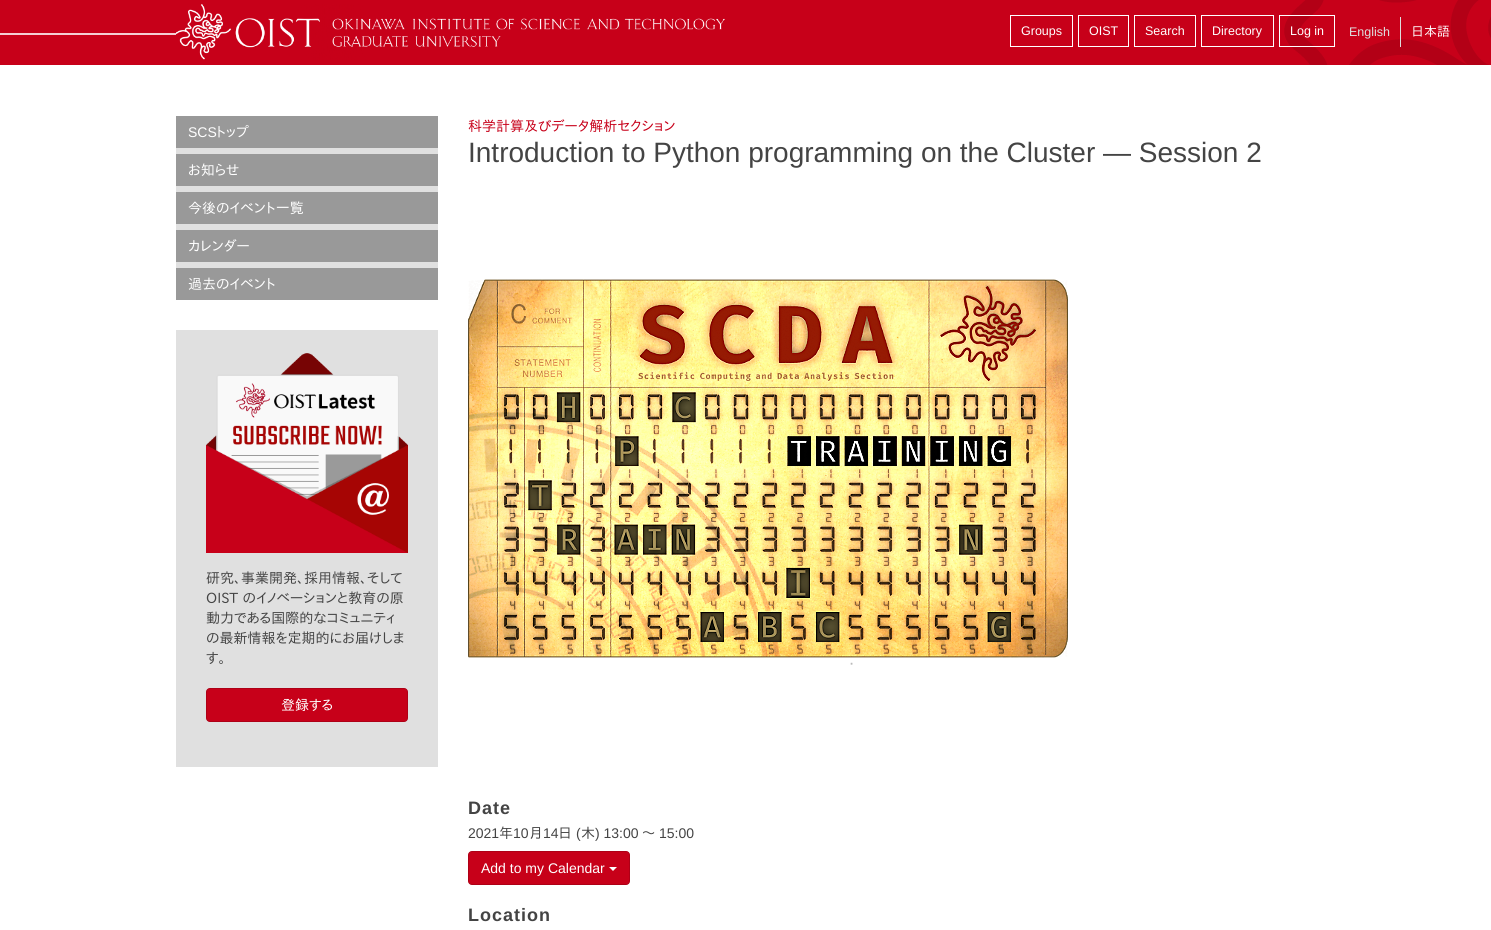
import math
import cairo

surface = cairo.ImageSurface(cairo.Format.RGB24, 1491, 930)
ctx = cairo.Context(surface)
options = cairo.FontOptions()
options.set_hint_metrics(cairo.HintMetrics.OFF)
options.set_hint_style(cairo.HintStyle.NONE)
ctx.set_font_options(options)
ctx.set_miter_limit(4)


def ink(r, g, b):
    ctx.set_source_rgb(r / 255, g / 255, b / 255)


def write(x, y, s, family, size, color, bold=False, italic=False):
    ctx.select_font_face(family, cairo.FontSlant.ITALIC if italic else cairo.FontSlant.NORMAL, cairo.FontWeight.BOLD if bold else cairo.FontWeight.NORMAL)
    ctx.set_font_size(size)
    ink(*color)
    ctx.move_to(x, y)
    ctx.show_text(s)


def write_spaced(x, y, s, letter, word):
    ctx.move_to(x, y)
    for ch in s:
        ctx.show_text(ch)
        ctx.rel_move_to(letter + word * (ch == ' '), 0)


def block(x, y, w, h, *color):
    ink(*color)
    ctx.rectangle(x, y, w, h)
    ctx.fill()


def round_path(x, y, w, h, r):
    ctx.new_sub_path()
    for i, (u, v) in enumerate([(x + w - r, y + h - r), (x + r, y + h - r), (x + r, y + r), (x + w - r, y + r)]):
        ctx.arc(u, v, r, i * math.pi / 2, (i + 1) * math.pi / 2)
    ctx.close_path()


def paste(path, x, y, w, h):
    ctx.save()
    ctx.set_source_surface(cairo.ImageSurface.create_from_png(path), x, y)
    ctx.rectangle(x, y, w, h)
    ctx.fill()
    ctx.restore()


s1 = dict(family="Liberation Sans", size=12.5, color=(255, 255, 255))
s2 = dict(family="Liberation Sans", size=12.5, color=(221, 221, 221))
s3 = dict(family="IPAPGothic", size=13, color=(255, 255, 255))
s4 = dict(family="Liberation Sans", size=14, color=(255, 255, 255))
s5 = dict(family="IPAPGothic", size=14, color=(255, 255, 255))
s6 = dict(family="IPAPGothic", size=14, color=(68, 68, 68))
s7 = dict(family="IPAPGothic", size=14, color=(199, 0, 25))
s8 = dict(family="Liberation Sans", size=28, color=(68, 68, 68))
s9 = dict(family="Liberation Sans", size=14, color=(68, 68, 68))

ink(255, 255, 255)
ctx.paint()
block(0, 0, 1491, 65, 199, 0, 25)
paste("pic1.png", 1284, 0, 207, 65)
block(0, 33, 176, 2, 244, 206, 211)
paste("pic2.png", 176, 4, 549, 56)
ctx.rectangle(1010.5, 15.5, 62, 31)
ink(255, 255, 255)
ctx.set_line_width(1)
ctx.stroke()
write(1021, 35, "Groups", **s1)
ctx.rectangle(1078.5, 15.5, 50, 31)
ctx.stroke()
write(1089, 35, "OIST", **s1)
ctx.rectangle(1134.5, 15.5, 61, 31)
ctx.stroke()
write(1145, 35, "Search", **s1)
ctx.rectangle(1201.5, 15.5, 72, 31)
ctx.stroke()
write(1212, 35, "Directory", **s1)
ctx.rectangle(1279.5, 15.5, 55, 31)
ctx.stroke()
write(1290, 35, "Log in", **s1)
write(1349, 36, "English", **s2)
block(1400, 17, 1, 30, 221, 221, 221)
write(1411, 36, "日本語", **s3)
block(176, 148, 262, 120, 224, 224, 224)
block(176, 116, 262, 32, 153, 153, 153)
write(188, 137, "SCS", **s4)
write(216, 137, "トップ", **s5)
block(176, 154, 262, 32, 153, 153, 153)
write(188, 175, "お知らせ", **s5)
block(176, 192, 262, 32, 153, 153, 153)
write(188, 213, "今後のイベント一覧", **s5)
block(176, 230, 262, 32, 153, 153, 153)
write(188, 251, "カレンダー", **s5)
block(176, 268, 262, 32, 153, 153, 153)
write(188, 289, "過去のイベント", **s5)
block(176, 330, 262, 437, 224, 224, 224)
paste("pic3.png", 206, 353, 202, 200)
write(206, 583, "研究、事業開発、採用情報、そして", **s6)
write_spaced(206, 603, "OIST のイノベーションと教育の原", 0, 1)
write(206, 623, "動力である国際的なコミュニティ", **s6)
write(206, 643, "の最新情報を定期的にお届けしま", **s6)
write(206, 663, "す。", **s6)
ink(199, 0, 25)
round_path(206.5, 688.5, 201, 33, 3.5)
ctx.fill_preserve()
ink(174, 0, 22)
ctx.stroke()
write(281, 710, "登録する", **s5)
write(468, 131, "科学計算及びデータ解析セクション", **s7)
write(468, 162, "Introduction to Python programming on the Cluster — Session 2", **s8)
paste("pic4.png", 468, 279, 600, 386)
ctx.select_font_face("Liberation Sans", cairo.FontSlant.NORMAL, cairo.FontWeight.BOLD)
ctx.set_font_size(18)
write_spaced(468, 814, "Date", 1, 0)
write(468, 838, "2021", **s9)
write(499, 838, "年", **s6)
write(513, 838, "10", **s9)
write(529, 838, "月", **s6)
write(543, 838, "14", **s9)
write(558, 838, "日", **s6)
write(576, 838, "(", **s9)
write(581, 838, "木", **s6)
write(595, 838, ") 13:00", **s9)
write(642, 838, "〜", **s6)
write(659, 838, "15:00", **s9)
ink(199, 0, 25)
round_path(468.5, 851.5, 161, 33, 3.5)
ctx.fill_preserve()
ink(174, 0, 22)
ctx.stroke()
write(481, 873, "Add to my Calendar", **s4)
ctx.new_path()
ctx.move_to(609, 867)
ctx.line_to(617, 867)
ctx.line_to(613, 871)
ctx.close_path()
ctx.fill()
ctx.select_font_face("Liberation Sans", cairo.FontSlant.NORMAL, cairo.FontWeight.BOLD)
ctx.set_font_size(18)
ink(68, 68, 68)
write_spaced(468, 921, "Location", 1, 0)
surface.write_to_png("screenshot.png")
